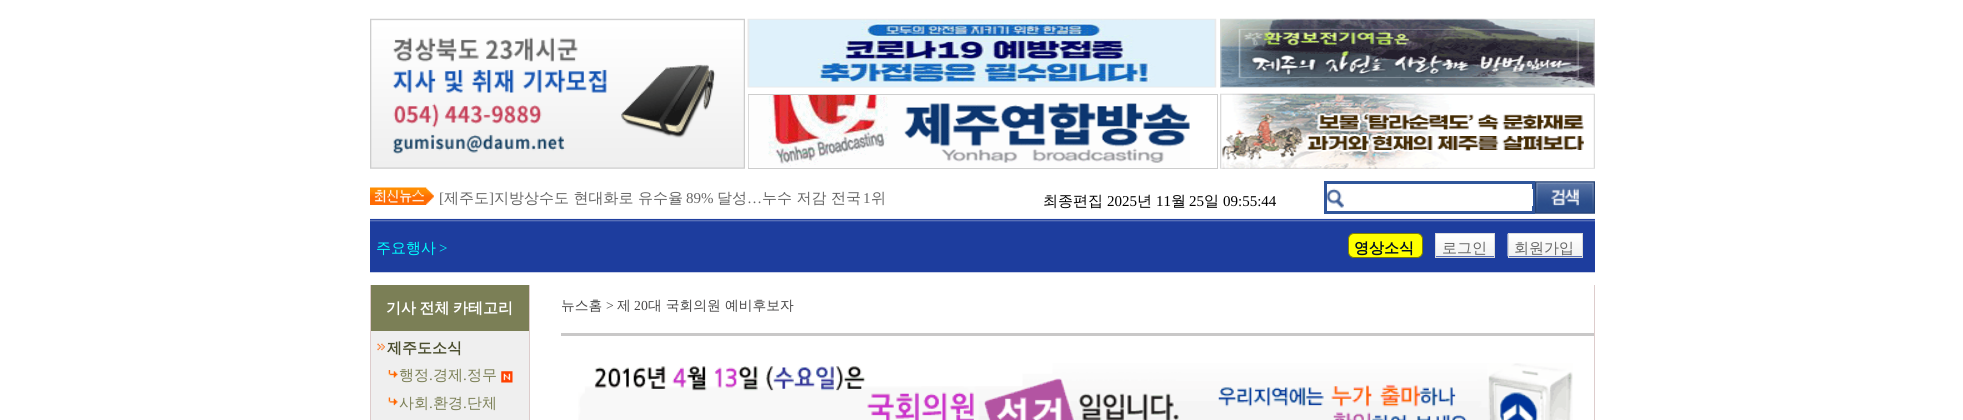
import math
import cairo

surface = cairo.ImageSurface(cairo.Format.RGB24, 1963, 420)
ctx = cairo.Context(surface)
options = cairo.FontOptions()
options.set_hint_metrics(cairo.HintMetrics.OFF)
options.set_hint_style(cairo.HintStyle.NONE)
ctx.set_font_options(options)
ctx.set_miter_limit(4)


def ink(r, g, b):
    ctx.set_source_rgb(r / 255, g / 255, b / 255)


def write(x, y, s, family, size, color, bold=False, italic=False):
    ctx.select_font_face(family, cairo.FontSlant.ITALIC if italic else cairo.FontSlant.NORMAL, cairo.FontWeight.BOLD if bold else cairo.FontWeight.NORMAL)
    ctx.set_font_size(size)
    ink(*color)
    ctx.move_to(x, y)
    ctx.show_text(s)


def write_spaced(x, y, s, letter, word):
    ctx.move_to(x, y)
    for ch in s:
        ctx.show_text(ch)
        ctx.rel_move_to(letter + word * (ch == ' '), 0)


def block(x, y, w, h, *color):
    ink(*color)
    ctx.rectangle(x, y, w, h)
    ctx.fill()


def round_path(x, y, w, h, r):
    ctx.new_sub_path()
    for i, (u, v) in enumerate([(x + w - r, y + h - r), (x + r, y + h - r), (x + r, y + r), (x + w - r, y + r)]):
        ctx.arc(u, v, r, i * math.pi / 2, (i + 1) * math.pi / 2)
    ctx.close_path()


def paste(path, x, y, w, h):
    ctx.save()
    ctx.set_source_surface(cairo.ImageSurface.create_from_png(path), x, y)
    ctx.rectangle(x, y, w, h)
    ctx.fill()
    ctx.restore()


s1 = dict(family="Liberation Serif", size=15, color=(102, 102, 102))
s2 = dict(family="WenQuanYi Zen Hei Medium", size=15, color=(102, 102, 102))
s3 = dict(family="WenQuanYi Zen Hei Medium", size=15, color=(0, 0, 0))
s4 = dict(family="Liberation Serif", size=15, color=(0, 0, 0))
s5 = dict(family="WenQuanYi Zen Hei Medium", size=15, color=(0, 255, 255))
s6 = dict(family="Liberation Serif", size=15, color=(0, 255, 255))
s7 = dict(family="WenQuanYi Zen Hei", size=15, color=(0, 17, 34), bold=True)
s8 = dict(family="WenQuanYi Zen Hei", size=15, color=(75, 78, 46), bold=True)
s9 = dict(family="WenQuanYi Zen Hei Medium", size=15, color=(123, 127, 86))
s10 = dict(family="Liberation Serif", size=15, color=(123, 127, 86))
s11 = dict(family="WenQuanYi Zen Hei Medium", size=13.75, color=(71, 70, 70))
s12 = dict(family="Liberation Serif", size=13.75, color=(71, 70, 70))

ink(255, 255, 255)
ctx.paint()
paste("pic1.png", 370, 18, 375, 151)
paste("pic2.png", 747, 18, 470, 70)
ctx.rectangle(748.5, 94.5, 469, 74)
ink(205, 205, 205)
ctx.set_line_width(1)
ctx.stroke()
paste("pic3.png", 748, 95, 442, 73)
paste("pic4.png", 1220, 18, 375, 70)
paste("pic5.png", 1220, 93, 375, 76)
paste("pic6.png", 370, 187, 64, 18)
write(439, 203, "[", **s1)
write(444, 203, "제주도", **s2)
write(489, 203, "]", **s1)
write(494, 203, "지방상수도 현대화로 유수율", **s2)
write(686, 203, "89%", **s1)
write(717, 203, "달성", **s2)
write(747, 203, "…", **s1)
write(762, 203, "누수 저감 전국", **s2)
write(863, 203, "1", **s1)
write(871, 203, "위", **s2)
write(1043, 206, "최종편집", **s3)
write(1107, 206, "2025", **s4)
write(1137, 206, "년", **s3)
write(1156, 206, "11", **s4)
write(1171, 206, "월", **s3)
write(1189, 206, "25", **s4)
write(1204, 206, "일", **s3)
write(1223, 206, "09:55:44", **s4)
paste("pic7.png", 1327, 188, 17, 20)
ctx.rectangle(1325.5, 182.5, 208, 30)
ink(47, 85, 154)
ctx.set_line_width(3)
ctx.stroke()
block(1532, 189, 1, 17, 255, 255, 255)
paste("pic8.png", 1535, 181, 60, 33)
paste("pic9.png", 370, 218, 1225, 55)
write(376, 253, "주요행사", **s5)
write(439, 253, ">", **s6)
ink(255, 255, 0)
round_path(1348.5, 233.5, 74, 24, 5.5)
ctx.fill_preserve()
ink(128, 128, 0)
ctx.set_line_width(1)
ctx.stroke()
write(1354, 253, "영상소식", **s7)
paste("pic10.png", 1436, 234, 58, 23)
ctx.rectangle(1435.5, 233.5, 59, 24)
ink(219, 219, 219)
ctx.stroke()
write(1442, 253, "로그인", **s2)
paste("pic11.png", 1507, 233, 75, 24)
ctx.rectangle(1508.5, 233.5, 74, 24)
ink(219, 219, 219)
ctx.stroke()
write(1514, 253, "회원가입", **s2)
block(1594, 285, 1, 135, 221, 204, 204)
block(370, 285, 1, 135, 221, 204, 204)
block(371, 331, 158, 89, 239, 239, 239)
block(529, 285, 1, 135, 221, 204, 204)
block(371, 285, 158, 46, 123, 127, 86)
ctx.select_font_face("WenQuanYi Zen Hei", cairo.FontSlant.NORMAL, cairo.FontWeight.BOLD)
ink(255, 255, 255)
write_spaced(386, 313, "기사 전체 카테고리", 0, -1)
paste("pic12.png", 377, 343, 8, 8)
write(387, 353, "제주도소식", **s8)
paste("pic13.png", 388, 370, 10, 8)
write(399, 380, "행정", **s9)
write(429, 380, ".", **s10)
write(433, 380, "경제", **s9)
write(463, 380, ".", **s10)
write(467, 380, "정무", **s9)
paste("pic14.png", 501, 371, 12, 12)
paste("pic15.png", 388, 397, 10, 9)
write(399, 408, "사회", **s9)
write(429, 408, ".", **s10)
write(433, 408, "환경", **s9)
write(463, 408, ".", **s10)
write(467, 408, "단체", **s9)
write(561, 310, "뉴스홈", **s11)
write(606, 310, ">", **s12)
write(617, 310, "제", **s11)
write(634, 310, "20", **s12)
write(648, 310, "대 국회의원 예비후보자", **s11)
block(561, 333, 1033, 3, 201, 200, 200)
paste("pic16.png", 578, 363, 995, 57)
surface.write_to_png("screenshot.png")
